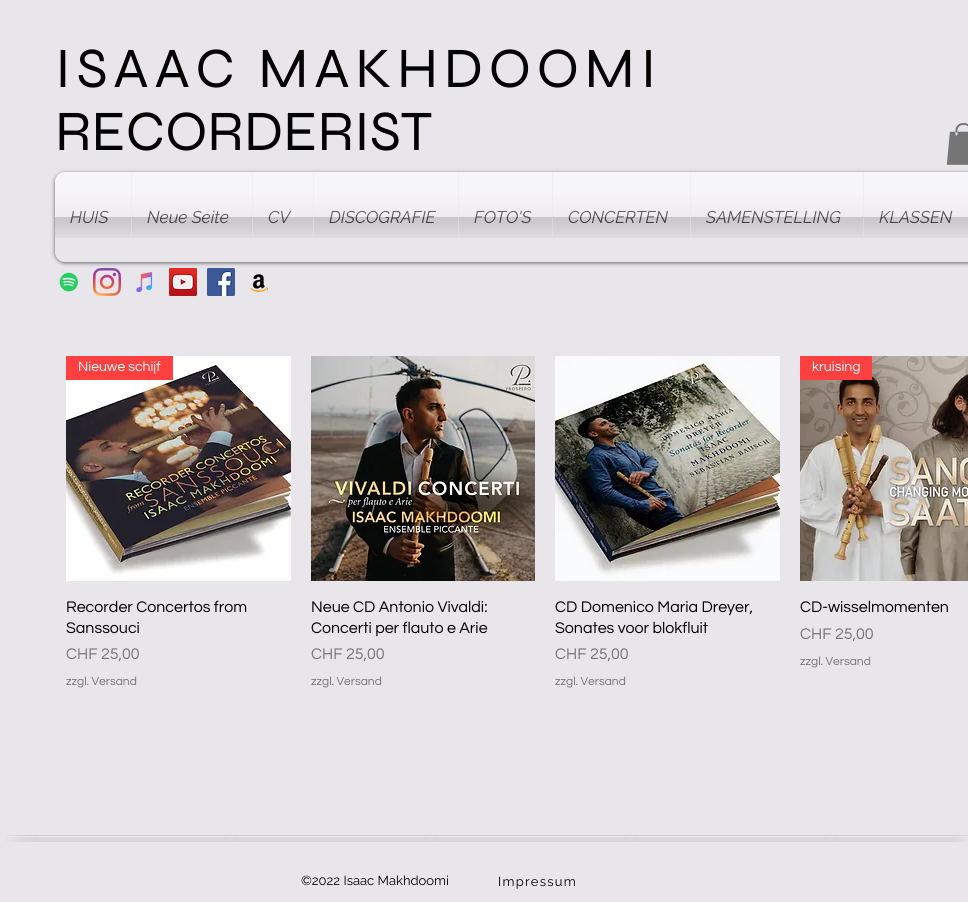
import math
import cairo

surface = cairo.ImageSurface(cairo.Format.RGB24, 968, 902)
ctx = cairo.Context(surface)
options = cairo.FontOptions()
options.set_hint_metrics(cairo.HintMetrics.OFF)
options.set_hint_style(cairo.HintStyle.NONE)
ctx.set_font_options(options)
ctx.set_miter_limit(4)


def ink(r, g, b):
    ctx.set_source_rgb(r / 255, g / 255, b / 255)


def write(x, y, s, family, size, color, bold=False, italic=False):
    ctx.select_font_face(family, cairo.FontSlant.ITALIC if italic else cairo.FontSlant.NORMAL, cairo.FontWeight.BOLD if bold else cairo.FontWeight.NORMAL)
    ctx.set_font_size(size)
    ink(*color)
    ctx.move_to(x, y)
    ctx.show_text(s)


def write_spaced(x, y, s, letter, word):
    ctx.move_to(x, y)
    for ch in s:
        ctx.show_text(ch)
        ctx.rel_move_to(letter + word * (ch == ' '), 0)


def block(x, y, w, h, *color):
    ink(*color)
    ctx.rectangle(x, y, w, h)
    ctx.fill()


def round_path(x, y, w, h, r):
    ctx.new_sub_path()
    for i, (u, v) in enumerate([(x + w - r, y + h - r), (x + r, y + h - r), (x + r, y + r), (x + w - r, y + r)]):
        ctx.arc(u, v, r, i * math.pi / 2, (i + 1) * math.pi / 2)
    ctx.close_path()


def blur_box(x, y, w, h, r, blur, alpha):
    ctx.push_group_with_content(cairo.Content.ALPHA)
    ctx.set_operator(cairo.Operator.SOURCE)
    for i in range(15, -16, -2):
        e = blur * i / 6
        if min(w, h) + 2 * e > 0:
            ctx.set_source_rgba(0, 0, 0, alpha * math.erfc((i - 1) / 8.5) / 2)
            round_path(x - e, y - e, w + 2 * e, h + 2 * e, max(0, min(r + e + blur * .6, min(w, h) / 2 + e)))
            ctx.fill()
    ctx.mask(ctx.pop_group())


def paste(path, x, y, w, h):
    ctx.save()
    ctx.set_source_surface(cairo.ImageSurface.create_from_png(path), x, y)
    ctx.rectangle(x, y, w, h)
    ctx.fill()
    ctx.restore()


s1 = dict(family="Syne", size=57, color=(0, 0, 0))
s2 = dict(family="Raleway", size=17, color=(68, 68, 68), italic=True)
s3 = dict(family="Questrial", size=14, color=(255, 255, 255))
s4 = dict(family="Questrial", size=16, color=(0, 0, 0))
s5 = dict(family="Questrial", size=16, color=(117, 117, 117))
s6 = dict(family="Questrial", size=12, color=(117, 117, 117))
s7 = dict(family="Raleway", size=13, color=(0, 0, 0))

ink(233, 230, 235)
ctx.paint()
ctx.select_font_face("Syne")
ctx.set_font_size(57)
ink(0, 0, 0)
write_spaced(55, 87, "ISAAC MAKHDOOMI", 5.75, 0)
write(55, 150, "RECORDERIST", **s1)
paste("pic1.png", 946, 123, 22, 42)
ctx.save()
ctx.set_fill_rule(cairo.FillRule.EVEN_ODD)
ctx.new_path()
ctx.move_to(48, 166)
ctx.line_to(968, 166)
ctx.line_to(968, 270)
ctx.line_to(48, 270)
ctx.close_path()
ctx.move_to(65, 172)
ctx.line_to(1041, 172)
ctx.curve_to(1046.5, 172, 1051, 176.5, 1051, 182)
ctx.line_to(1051, 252)
ctx.curve_to(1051, 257.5, 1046.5, 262, 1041, 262)
ctx.line_to(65, 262)
ctx.curve_to(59.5, 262, 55, 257.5, 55, 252)
ctx.line_to(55, 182)
ctx.curve_to(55, 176.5, 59.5, 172, 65, 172)
ctx.close_path()
ctx.clip()
ink(0, 0, 0)
blur_box(55, 173, 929, 90, 10, 2, 0.6)
ctx.restore()
paste("pic2.png", 55, 172, 913, 66)
write(70, 223, "HUIS", **s2)
paste("pic3.png", 55, 172, 76, 66)
write(147, 223, "Neue Seite", **s2)
paste("pic4.png", 132, 172, 120, 66)
write(268, 223, "CV", **s2)
paste("pic5.png", 253, 172, 60, 66)
write(329, 223, "DISCOGRAFIE", **s2)
paste("pic6.png", 314, 172, 144, 66)
write(474, 223, "FOTO'S", **s2)
paste("pic7.png", 459, 172, 93, 66)
write(568, 223, "CONCERTEN", **s2)
paste("pic8.png", 553, 172, 137, 66)
write(706, 223, "SAMENSTELLING", **s2)
paste("pic9.png", 691, 172, 172, 66)
write(879, 223, "KLASSEN", **s2)
paste("pic10.png", 864, 172, 104, 66)
paste("pic11.png", 59, 272, 20, 20)
paste("pic12.png", 93, 268, 28, 28)
paste("pic13.png", 136, 272, 17, 21)
paste("pic14.png", 169, 268, 28, 28)
paste("pic15.png", 207, 268, 28, 28)
paste("pic16.png", 249, 274, 20, 18)
paste("pic17.png", 66, 356, 225, 225)
block(66, 356, 107, 24, 255, 64, 64)
write(78, 371, "Nieuwe schijf", **s3)
write(66, 612, "Recorder Concertos from", **s4)
write(66, 633, "Sanssouci", **s4)
write(66, 659, "CHF 25,00", **s5)
write(66, 685, "zzgl. Versand", **s6)
paste("pic18.png", 311, 356, 224, 225)
write(311, 612, "Neue CD Antonio Vivaldi:", **s4)
write(311, 633, "Concerti per flauto e Arie", **s4)
write(311, 659, "CHF 25,00", **s5)
write(311, 685, "zzgl. Versand", **s6)
paste("pic19.png", 555, 356, 225, 225)
write(555, 612, "CD Domenico Maria Dreyer,", **s4)
write(555, 633, "Sonates voor blokfluit", **s4)
write(555, 659, "CHF 25,00", **s5)
write(555, 685, "zzgl. Versand", **s6)
paste("pic20.png", 800, 356, 168, 225)
block(800, 356, 72, 24, 255, 64, 64)
write(812, 371, "kruising", **s3)
write(800, 612, "CD-wisselmomenten", **s4)
write(800, 639, "CHF 25,00", **s5)
write(800, 665, "zzgl. Versand", **s6)
paste("pic21.png", 6, 835, 24, 7)
paste("pic22.png", 30, 835, 920, 7)
paste("pic23.png", 950, 835, 18, 7)
write(301, 885, "©2022 Isaac Makhdoomi", **s7)
write_spaced(498, 886, "Impressum", 1.25, 0)
surface.write_to_png("screenshot.png")
